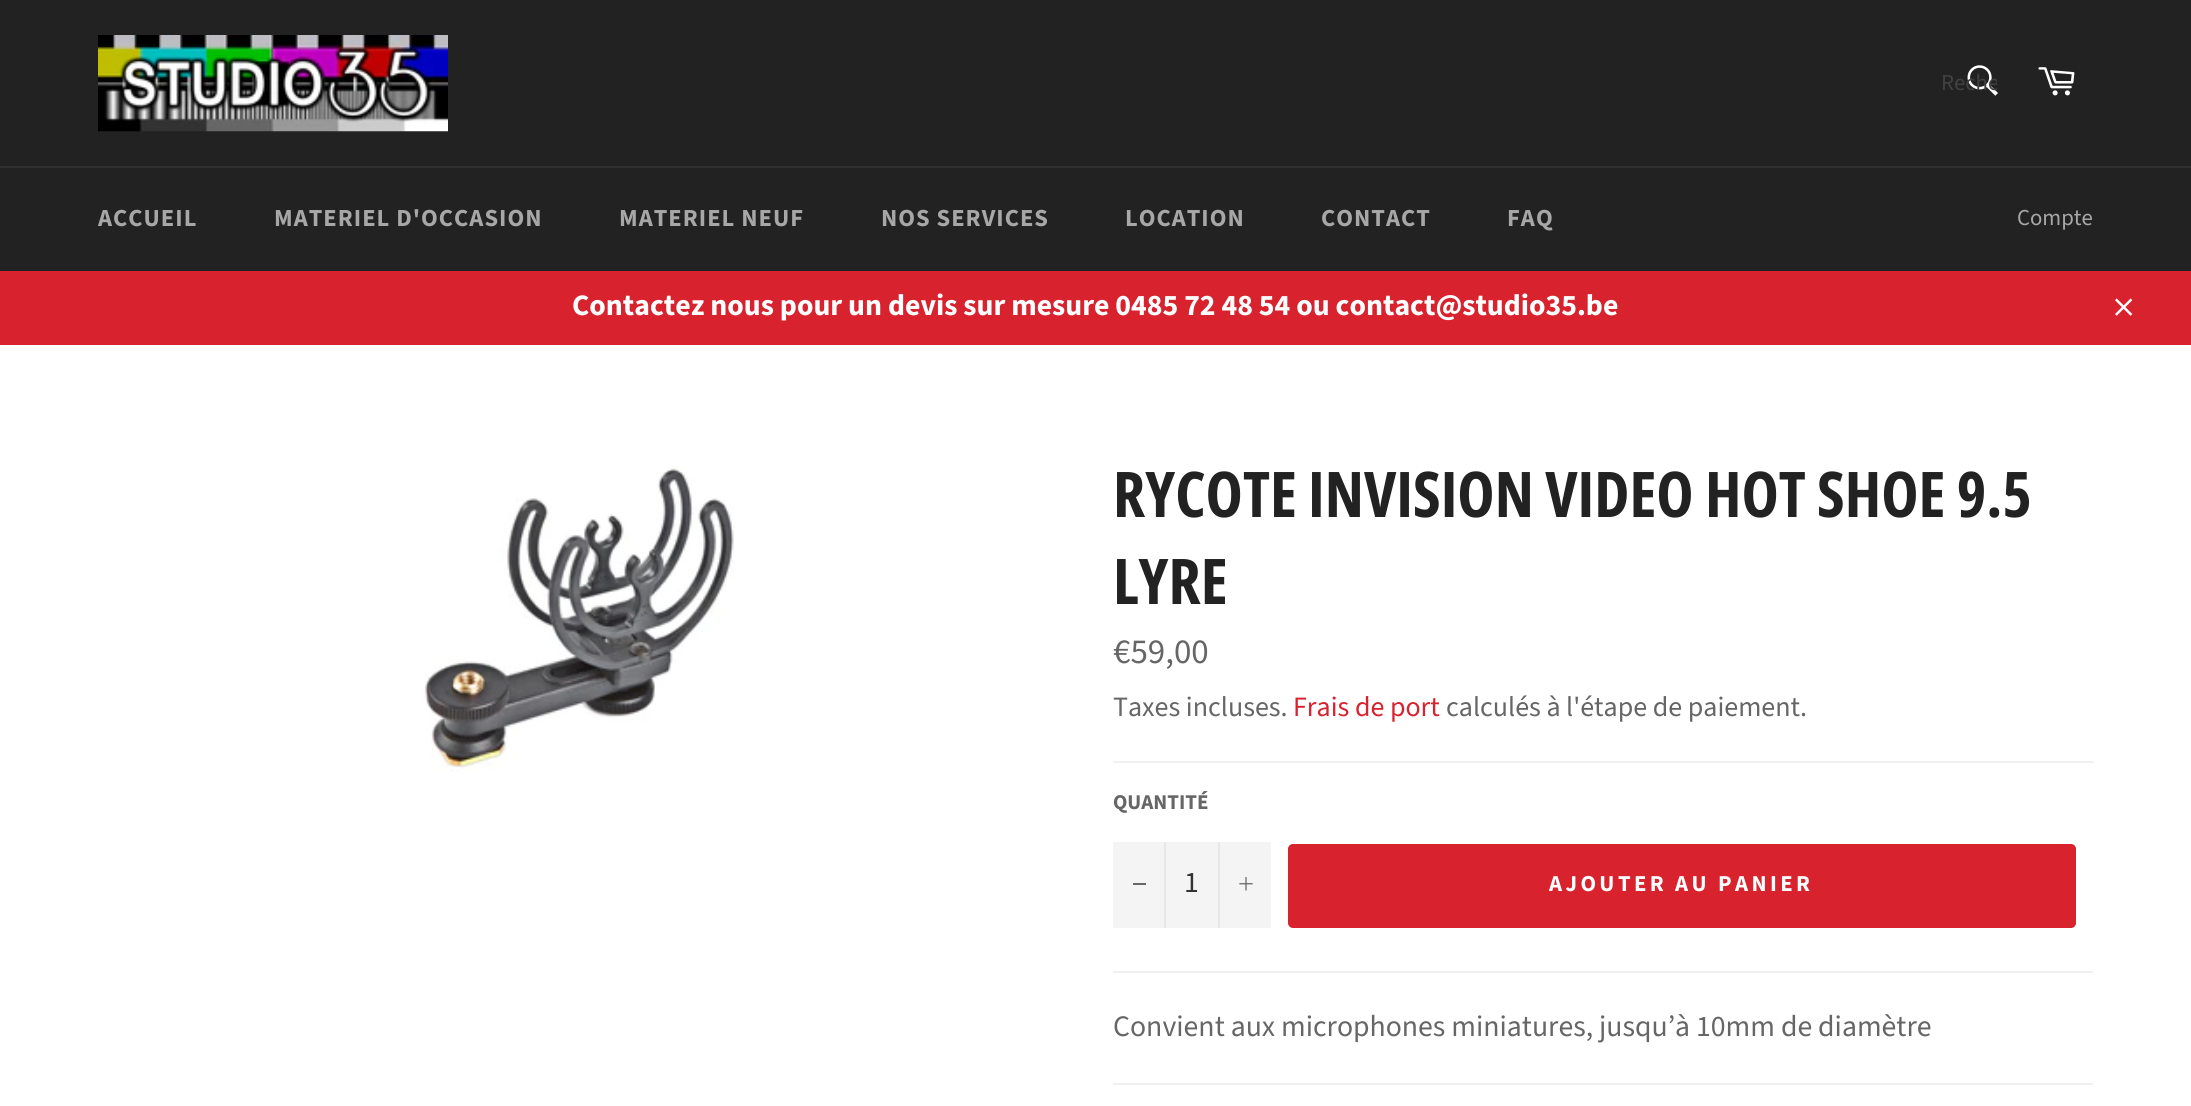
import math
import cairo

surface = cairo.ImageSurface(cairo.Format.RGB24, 2191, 1106)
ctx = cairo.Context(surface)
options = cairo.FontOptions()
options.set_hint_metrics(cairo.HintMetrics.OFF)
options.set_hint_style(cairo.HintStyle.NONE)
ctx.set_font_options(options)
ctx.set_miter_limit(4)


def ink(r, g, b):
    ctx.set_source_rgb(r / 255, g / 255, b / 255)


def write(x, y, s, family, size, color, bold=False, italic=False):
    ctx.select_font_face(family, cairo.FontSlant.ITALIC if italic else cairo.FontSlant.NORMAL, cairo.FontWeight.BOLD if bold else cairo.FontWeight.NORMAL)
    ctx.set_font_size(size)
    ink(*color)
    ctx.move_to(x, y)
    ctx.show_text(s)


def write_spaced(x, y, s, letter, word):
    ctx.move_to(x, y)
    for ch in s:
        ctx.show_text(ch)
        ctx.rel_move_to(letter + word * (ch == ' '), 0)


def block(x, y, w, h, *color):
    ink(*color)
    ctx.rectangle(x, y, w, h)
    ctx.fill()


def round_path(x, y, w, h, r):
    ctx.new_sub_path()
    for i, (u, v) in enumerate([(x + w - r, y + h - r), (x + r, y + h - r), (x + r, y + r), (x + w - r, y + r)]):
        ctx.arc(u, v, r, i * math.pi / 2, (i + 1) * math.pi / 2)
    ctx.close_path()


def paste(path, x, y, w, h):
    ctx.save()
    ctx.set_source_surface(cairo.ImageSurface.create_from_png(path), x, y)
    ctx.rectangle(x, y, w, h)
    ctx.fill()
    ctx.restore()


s1 = dict(family="Source Sans Pro", size=22.75, color=(65, 65, 65))
s2 = dict(family="Source Sans Pro", size=22.75, color=(167, 167, 167))
s3 = dict(family="Source Sans Pro", size=29.75, color=(255, 255, 255), bold=True)
s4 = dict(family="Open Sans Condensed", size=63, color=(34, 34, 34), bold=True)
s5 = dict(family="Source Sans Pro", size=35, color=(102, 102, 102))
s6 = dict(family="Source Sans Pro", size=28, color=(102, 102, 102))
s7 = dict(family="Source Sans Pro", size=28, color=(216, 35, 47))
s8 = dict(family="Source Sans Pro", size=21, color=(102, 102, 102), bold=True)
s9 = dict(family="Source Sans Pro", size=29.75, color=(51, 51, 51))
s10 = dict(family="Source Sans Pro", size=29.75, color=(102, 102, 102))

ink(34, 34, 34)
ctx.paint()
paste("pic1.png", 98, 35, 350, 97)
paste("pic2.png", 1967, 65, 31, 31)
ctx.save()
ctx.rectangle(1941, 68, 56, 32)
ctx.clip()
write(1941, 90, "Reche", **s1)
ctx.restore()
paste("pic3.png", 2038, 67, 37, 29)
block(0, 166, 2191, 2, 47, 47, 47)
ctx.select_font_face("Source Sans Pro", cairo.FontSlant.NORMAL, cairo.FontWeight.BOLD)
ctx.set_font_size(24.5)
ink(167, 167, 167)
write_spaced(98, 226, "ACCUEIL", 1, 0)
write_spaced(274, 226, "MATERIEL D'OCCASION", 1, 0)
write_spaced(619, 226, "MATERIEL NEUF", 1, 0)
write_spaced(881, 226, "NOS SERVICES", 1, 0)
write_spaced(1125, 226, "LOCATION", 1, 0)
write_spaced(1321, 226, "CONTACT", 1, 0)
write_spaced(1507, 226, "FAQ", 1, 0)
write(2017, 225, "Compte", **s2)
block(0, 271, 2191, 74, 216, 35, 47)
write(572, 315, "Contactez nous pour un devis sur mesure 0485 72 48 54 ou contact@studio35.be", **s3)
paste("pic4.png", 2115, 298, 18, 18)
block(0, 345, 2191, 761, 255, 255, 255)
paste("pic5.png", 424, 466, 310, 306)
write(1113, 517, "RYCOTE INVISION VIDEO HOT SHOE 9.5", **s4)
write(1113, 604, "LYRE", **s4)
write(1113, 663, "€59,00", **s5)
write(1113, 716, "Taxes incluses.", **s6)
write(1293, 716, "Frais de port", **s7)
write(1446, 716, "calculés à l'étape de paiement.", **s6)
block(1113, 761, 980, 2, 240, 240, 240)
write(1113, 809, "QUANTITÉ", **s8)
block(1113, 842, 158, 86, 244, 244, 244)
block(1164, 842, 2, 86, 231, 231, 231)
block(1133, 883, 13, 2, 102, 102, 102)
write(1184, 892, "1", **s9)
block(1218, 842, 2, 86, 231, 231, 231)
paste("pic6.png", 1239, 877, 14, 14)
ink(216, 35, 47)
round_path(1288, 844, 788, 84, 5)
ctx.fill()
ctx.select_font_face("Source Sans Pro", cairo.FontSlant.NORMAL, cairo.FontWeight.BOLD)
ctx.set_font_size(22.75)
ink(255, 255, 255)
write_spaced(1549, 891, "AJOUTER AU PANIER", 3.4, 0)
block(1113, 971, 980, 2, 240, 240, 240)
write(1113, 1036, "Convient aux microphones miniatures, jusqu’à 10mm de diamètre", **s10)
block(1113, 1083, 980, 2, 240, 240, 240)
surface.write_to_png("screenshot.png")
